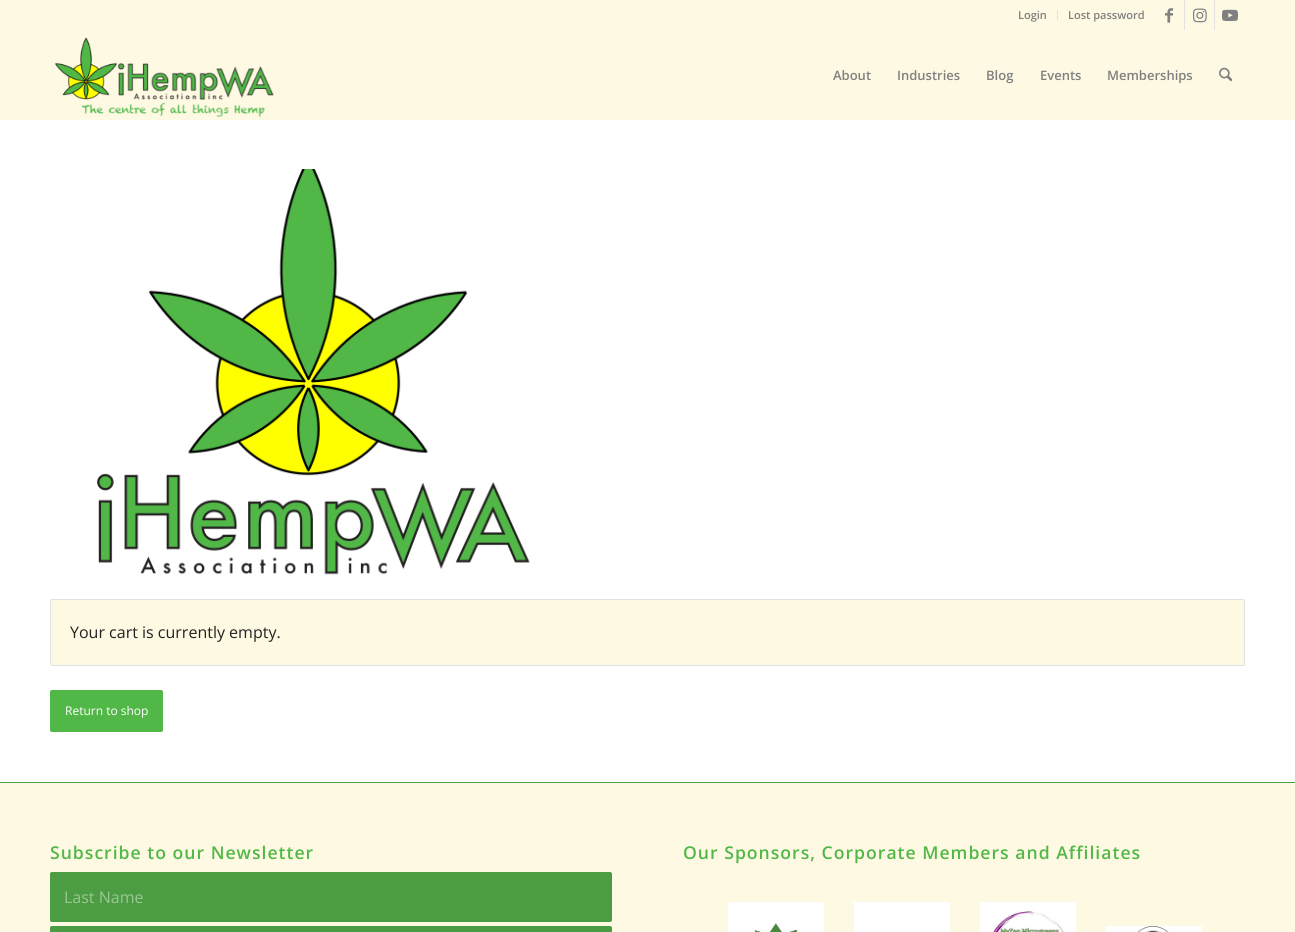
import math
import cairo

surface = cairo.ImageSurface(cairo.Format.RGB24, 1295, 932)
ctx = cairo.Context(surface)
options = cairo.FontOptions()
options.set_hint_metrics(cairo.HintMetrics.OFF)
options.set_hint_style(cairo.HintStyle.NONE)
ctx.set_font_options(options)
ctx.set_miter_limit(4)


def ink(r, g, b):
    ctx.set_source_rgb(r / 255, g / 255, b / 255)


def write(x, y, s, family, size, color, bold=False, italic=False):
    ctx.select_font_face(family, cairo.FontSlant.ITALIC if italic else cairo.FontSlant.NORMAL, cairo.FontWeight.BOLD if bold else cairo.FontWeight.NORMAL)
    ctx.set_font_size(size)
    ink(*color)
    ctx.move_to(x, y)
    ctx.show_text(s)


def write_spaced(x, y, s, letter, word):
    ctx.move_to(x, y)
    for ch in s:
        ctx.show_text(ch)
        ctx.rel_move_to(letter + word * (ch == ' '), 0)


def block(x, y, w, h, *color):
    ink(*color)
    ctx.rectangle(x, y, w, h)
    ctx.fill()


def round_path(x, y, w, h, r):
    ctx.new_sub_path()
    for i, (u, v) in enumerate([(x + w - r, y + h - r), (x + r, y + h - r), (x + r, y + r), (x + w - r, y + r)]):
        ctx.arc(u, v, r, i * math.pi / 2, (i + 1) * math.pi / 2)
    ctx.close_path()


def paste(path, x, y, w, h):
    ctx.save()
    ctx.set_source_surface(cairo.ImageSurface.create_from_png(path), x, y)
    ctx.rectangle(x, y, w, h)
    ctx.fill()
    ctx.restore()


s1 = dict(family="Open Sans SemiBold", size=11, color=(128, 128, 128))
s2 = dict(family="Open Sans SemiBold", size=13, color=(128, 128, 128))
s3 = dict(family="Open Sans", size=16, color=(34, 34, 34))
s4 = dict(family="Open Sans", size=12, color=(255, 255, 255))
s5 = dict(family="Open Sans", size=16, color=(156, 199, 146))

ink(254, 249, 226)
ctx.paint()
block(1057, 10, 1, 10, 225, 225, 225)
write(1018, 19, "Login", **s1)
write(1068, 19, "Lost password", **s1)
block(1184, 0, 1, 30, 225, 225, 225)
paste("pic1.png", 1165, 8, 8, 15)
block(1214, 0, 1, 30, 225, 225, 225)
paste("pic2.png", 1193, 8, 14, 15)
paste("pic3.png", 1222, 9, 16, 12)
paste("pic4.png", 54, 37, 220, 80)
write(833, 80, "About", **s2)
write(897, 80, "Industries", **s2)
write(986, 80, "Blog", **s2)
write(1040, 80, "Events", **s2)
write(1107, 80, "Memberships", **s2)
paste("pic5.png", 1219, 67, 13, 15)
block(0, 120, 1295, 662, 255, 255, 255)
paste("pic6.png", 97, 169, 433, 406)
ink(254, 249, 226)
round_path(50.5, 599.5, 1194, 66, 1.5)
ctx.fill_preserve()
ink(225, 225, 225)
ctx.set_line_width(1)
ctx.stroke()
write(70, 638, "Your cart is currently empty.", **s3)
ink(81, 184, 72)
round_path(50, 690, 113, 42, 2)
ctx.fill()
write(65, 715, "Return to shop", **s4)
block(0, 782, 1295, 1, 75, 156, 67)
ctx.select_font_face("Open Sans SemiBold")
ctx.set_font_size(17.6)
ink(81, 184, 72)
write_spaced(50, 859, "Subscribe to our Newsletter", 1, 0)
ink(75, 156, 67)
round_path(50.5, 872.5, 561, 49, 1.5)
ctx.fill_preserve()
ctx.stroke()
write(64, 903, "Last Name", **s5)
ink(75, 156, 67)
round_path(50.5, 926.5, 561, 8, 1.5)
ctx.fill_preserve()
ctx.stroke()
ctx.select_font_face("Open Sans SemiBold")
ctx.set_font_size(17.6)
ink(81, 184, 72)
write_spaced(683, 859, "Our Sponsors, Corporate Members and Affiliates", 1, 0)
paste("pic7.png", 728, 902, 96, 30)
block(854, 902, 96, 30, 255, 255, 255)
paste("pic8.png", 980, 902, 96, 30)
paste("pic9.png", 1106, 926, 96, 6)
surface.write_to_png("screenshot.png")
